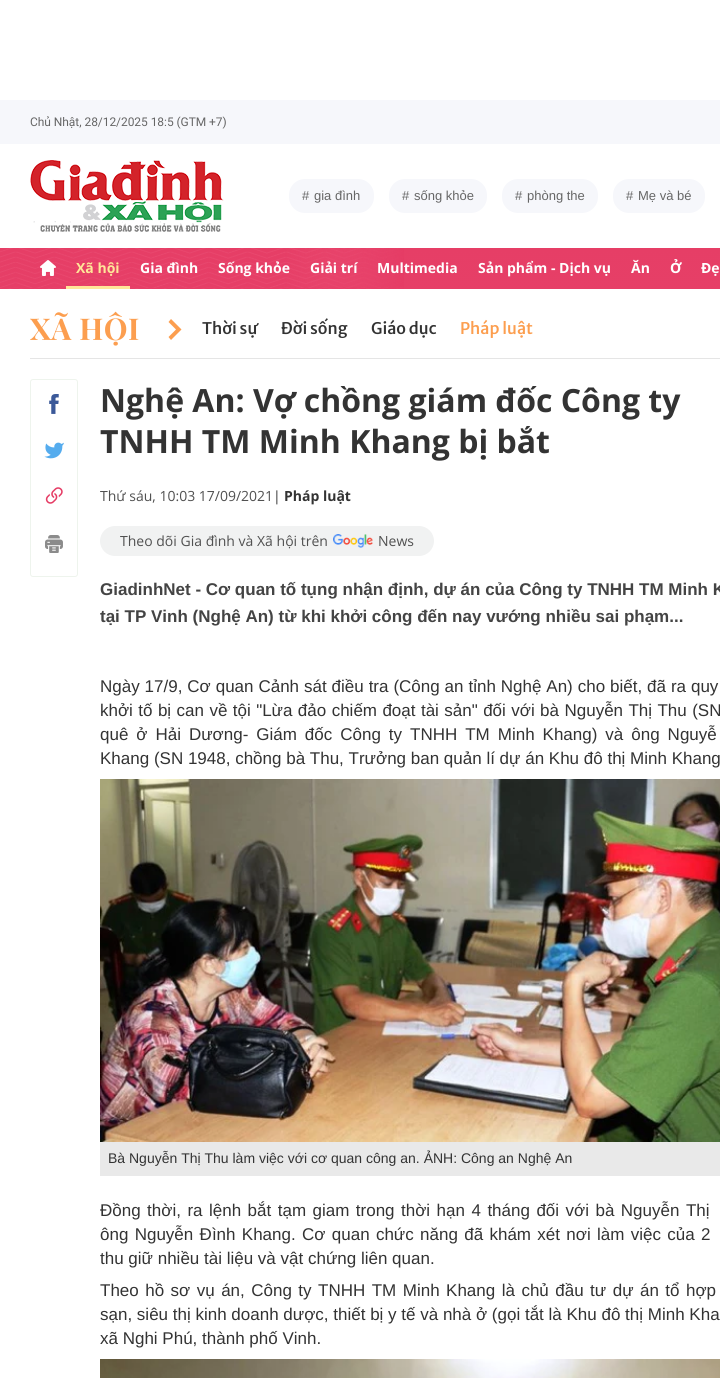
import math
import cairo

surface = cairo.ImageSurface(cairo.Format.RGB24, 720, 1378)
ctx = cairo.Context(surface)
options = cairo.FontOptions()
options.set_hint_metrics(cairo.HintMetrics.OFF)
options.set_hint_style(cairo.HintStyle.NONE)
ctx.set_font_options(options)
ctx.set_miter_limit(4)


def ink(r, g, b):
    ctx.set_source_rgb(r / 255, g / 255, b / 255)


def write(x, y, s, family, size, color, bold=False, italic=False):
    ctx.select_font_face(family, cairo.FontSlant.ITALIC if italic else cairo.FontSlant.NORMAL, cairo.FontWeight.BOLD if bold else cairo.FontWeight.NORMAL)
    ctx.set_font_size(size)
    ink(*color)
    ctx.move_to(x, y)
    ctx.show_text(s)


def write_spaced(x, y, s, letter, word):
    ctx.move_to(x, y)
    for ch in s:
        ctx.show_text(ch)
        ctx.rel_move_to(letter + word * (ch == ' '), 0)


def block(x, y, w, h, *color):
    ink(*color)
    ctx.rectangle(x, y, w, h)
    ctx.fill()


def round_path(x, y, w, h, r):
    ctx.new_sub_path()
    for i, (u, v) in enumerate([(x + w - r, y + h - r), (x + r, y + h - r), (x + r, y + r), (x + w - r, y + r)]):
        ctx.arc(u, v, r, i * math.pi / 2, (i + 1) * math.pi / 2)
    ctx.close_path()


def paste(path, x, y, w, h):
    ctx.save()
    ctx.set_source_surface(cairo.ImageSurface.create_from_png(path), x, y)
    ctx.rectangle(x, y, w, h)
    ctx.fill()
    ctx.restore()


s1 = dict(family="Liberation Sans", size=13, color=(102, 102, 102))
s2 = dict(family="Open Sans", size=14, color=(255, 230, 152), bold=True)
s3 = dict(family="Open Sans", size=14, color=(255, 255, 255), bold=True)
s4 = dict(family="Merriweather Sans Medium", size=16, color=(51, 51, 51))
s5 = dict(family="Merriweather Sans Medium", size=16, color=(252, 158, 79))
s6 = dict(family="Open Sans", size=32, color=(51, 51, 51), bold=True)
s7 = dict(family="Open Sans", size=14, color=(81, 81, 81))
s8 = dict(family="Open Sans", size=14, color=(51, 51, 51))
s9 = dict(family="Open Sans", size=14, color=(51, 51, 51), bold=True)
s10 = dict(family="Liberation Sans", size=17, color=(68, 68, 68), bold=True)
s11 = dict(family="Liberation Sans", size=17, color=(51, 51, 51))
s12 = dict(family="Liberation Sans", size=14, color=(51, 51, 51))

ink(255, 255, 255)
ctx.paint()
block(0, 100, 720, 44, 246, 247, 251)
ctx.select_font_face("Roboto")
ctx.set_font_size(12)
ink(102, 102, 102)
write_spaced(30, 126, "Chủ Nhật, 28/12/2025 18:5 (GTM +7)", -0.05, 0)
paste("pic1.png", 30, 160, 194, 72)
ink(246, 247, 251)
round_path(289, 179, 85, 34, 16)
ctx.fill()
write(302, 200, "#", **s1)
write(314, 200, "gia đình", **s1)
ink(246, 247, 251)
round_path(389, 179, 98, 34, 16)
ctx.fill()
write(402, 200, "#", **s1)
write(414, 200, "sống khỏe", **s1)
ink(246, 247, 251)
round_path(502, 179, 96, 34, 16)
ctx.fill()
write(515, 200, "#", **s1)
write(527, 200, "phòng the", **s1)
ink(246, 247, 251)
round_path(613, 179, 92, 34, 16)
ctx.fill()
write(626, 200, "#", **s1)
write(638, 200, "Mẹ và bé", **s1)
paste("pic2.png", 0, 248, 720, 41)
paste("pic3.png", 40, 260, 16, 16)
block(66, 286, 64, 3, 255, 230, 152)
write(76, 273, "Xã hội", **s2)
write(140, 273, "Gia đình", **s3)
write(218, 273, "Sống khỏe", **s3)
write(310, 273, "Giải trí", **s3)
write(377, 273, "Multimedia", **s3)
write(478, 273, "Sản phẩm - Dịch vụ", **s3)
write(631, 273, "Ăn", **s3)
write(670, 273, "Ở", **s3)
write(701, 273, "Đẹ", **s3)
block(30, 358, 690, 1, 229, 229, 229)
ctx.select_font_face("Playfair Display", cairo.FontSlant.NORMAL, cairo.FontWeight.BOLD)
ctx.set_font_size(30)
ink(252, 158, 79)
write_spaced(30, 340, "XÃ HỘI", 0.5, 0)
ctx.new_path()
ctx.move_to(171, 340)
ctx.line_to(168.5, 337)
ctx.line_to(176, 329.5)
ctx.line_to(168.5, 322)
ctx.line_to(171, 319)
ctx.line_to(181.5, 329.5)
ctx.close_path()
ctx.fill()
write(202, 334, "Thời sự", **s4)
write(281, 334, "Đời sống", **s4)
write(371, 334, "Giáo dục", **s4)
write(460, 334, "Pháp luật", **s5)
round_path(30.5, 379.5, 47, 197, 2.5)
ink(238, 244, 237)
ctx.set_line_width(1)
ctx.stroke()
paste("pic4.png", 49, 394, 10, 20)
paste("pic5.png", 44, 442, 20, 17)
paste("pic6.png", 45, 487, 18, 17)
paste("pic7.png", 45, 535, 18, 18)
write(100, 412, "Nghệ An: Vợ chồng giám đốc Công ty", **s6)
write(100, 453, "TNHH TM Minh Khang bị bắt", **s6)
write(100, 501, "Thứ sáu, 10:03 17/09/2021", **s7)
write(273, 501, "|", **s8)
write(284, 501, "Pháp luật", **s9)
ink(241, 242, 242)
round_path(100, 526, 334, 30, 15)
ctx.fill()
write(120, 546, "Theo dõi Gia đình và Xã hội trên", **s7)
paste("pic8.png", 333, 534, 40, 14)
write(378, 546, "News", **s7)
write(100, 595, "GiadinhNet - Cơ quan tố tụng nhận định, dự án của Công ty TNHH TM Minh K", **s10)
write(100, 622, "tại TP Vinh (Nghệ An) từ khi khởi công đến nay vướng nhiều sai phạm...", **s10)
ctx.select_font_face("Liberation Sans")
ink(51, 51, 51)
write_spaced(100, 692, "Ngày 17/9, Cơ quan Cảnh sát điều tra (Công an tỉnh Nghệ An) cho biết, đã ra quy", 0, 0.2)
write_spaced(100, 716, "khởi tố bị can về tội \"Lừa đảo chiếm đoạt tài sản\" đối với bà Nguyễn Thị Thu (SN", 0, 0.7)
write_spaced(100, 740, "quê ở Hải Dương- Giám đốc Công ty TNHH TM Minh Khang) và ông Nguyễ", 0, 3.25)
write(100, 764, "Khang (SN 1948, chồng bà Thu, Trưởng ban quản lí dự án Khu đô thị Minh Khang", **s11)
paste("pic9.png", 100, 779, 620, 363)
block(100, 1142, 620, 34, 233, 233, 233)
write(108, 1163, "Bà Nguyễn Thị Thu làm việc với cơ quan công an. ẢNH: Công an Nghệ An", **s12)
ctx.set_font_size(17)
write_spaced(100, 1216, "Đồng thời, ra lệnh bắt tạm giam trong thời hạn 4 tháng đối với bà Nguyễn Thị", 0, 1.75)
write_spaced(100, 1240, "ông Nguyễn Đình Khang. Cơ quan chức năng đã khám xét nơi làm việc của 2", 0, 1.6)
write(100, 1264, "thu giữ nhiều tài liệu và vật chứng liên quan.", **s11)
write_spaced(100, 1296, "Theo hồ sơ vụ án, Công ty TNHH TM Minh Khang là chủ đầu tư dự án tổ hợp", 0, 1.75)
write(100, 1320, "sạn, siêu thị kinh doanh dược, thiết bị y tế và nhà ở (gọi tắt là Khu đô thị Minh Kha", **s11)
write(100, 1344, "xã Nghi Phú, thành phố Vinh.", **s11)
paste("pic10.png", 100, 1359, 620, 19)
surface.write_to_png("screenshot.png")
